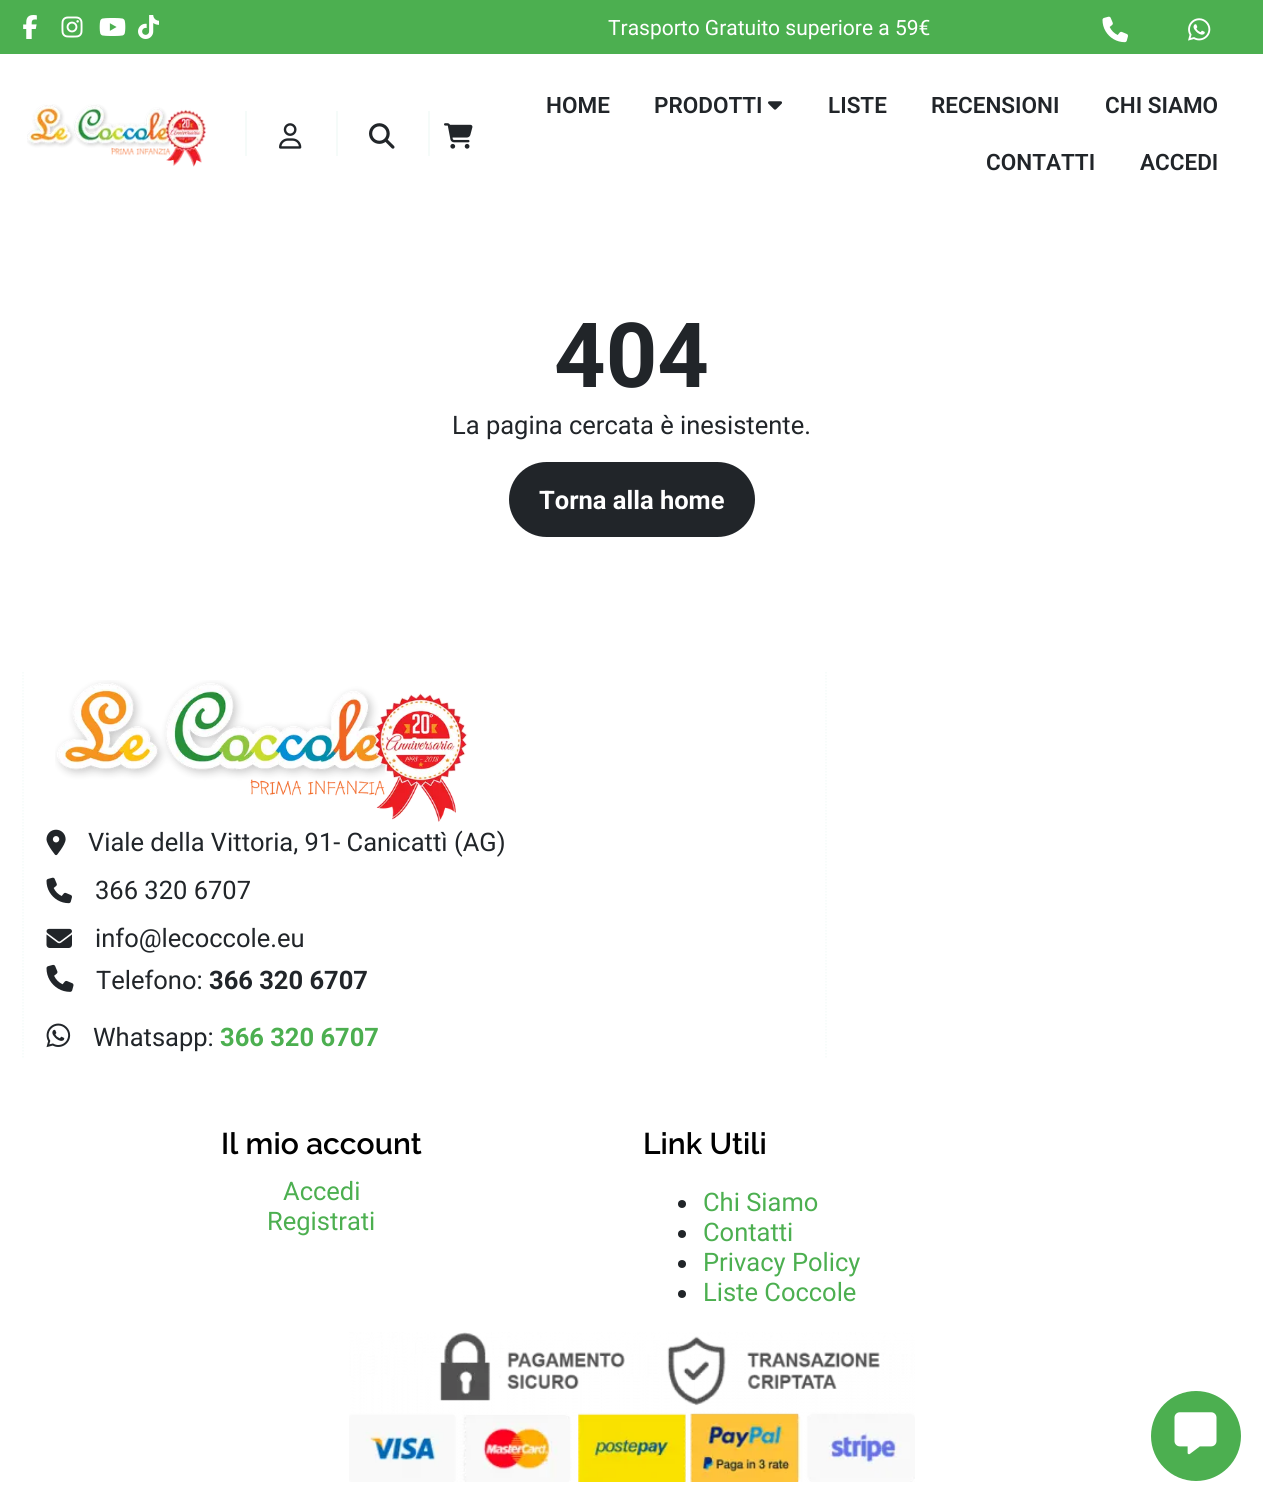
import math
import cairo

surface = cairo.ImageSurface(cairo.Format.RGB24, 1263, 1502)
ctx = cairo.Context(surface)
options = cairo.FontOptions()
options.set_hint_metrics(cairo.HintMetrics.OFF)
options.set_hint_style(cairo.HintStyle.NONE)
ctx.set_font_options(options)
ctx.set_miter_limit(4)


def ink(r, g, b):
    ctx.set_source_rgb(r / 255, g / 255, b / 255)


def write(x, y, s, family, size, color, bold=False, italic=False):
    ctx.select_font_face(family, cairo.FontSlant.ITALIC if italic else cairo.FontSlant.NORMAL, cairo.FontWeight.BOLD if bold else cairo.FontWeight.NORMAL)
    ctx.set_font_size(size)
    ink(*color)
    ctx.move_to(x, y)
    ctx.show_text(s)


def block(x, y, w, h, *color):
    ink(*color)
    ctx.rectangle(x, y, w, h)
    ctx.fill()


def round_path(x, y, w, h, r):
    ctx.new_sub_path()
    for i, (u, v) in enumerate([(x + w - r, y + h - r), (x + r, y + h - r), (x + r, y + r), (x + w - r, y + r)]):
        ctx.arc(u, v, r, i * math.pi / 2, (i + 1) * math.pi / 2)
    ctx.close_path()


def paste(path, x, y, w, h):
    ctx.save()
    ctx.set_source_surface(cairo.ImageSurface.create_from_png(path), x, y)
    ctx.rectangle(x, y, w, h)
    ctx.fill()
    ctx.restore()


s1 = dict(family="Roboto", size=21, color=(255, 255, 255))
s2 = dict(family="Roboto SemiBold", size=22.5, color=(33, 37, 41))
s3 = dict(family="Roboto", size=90, color=(33, 37, 41), bold=True)
s4 = dict(family="Roboto", size=25.5, color=(33, 37, 41))
s5 = dict(family="Roboto", size=25.5, color=(255, 255, 255), bold=True)
s6 = dict(family="Roboto", size=25.5, color=(33, 37, 41), bold=True)
s7 = dict(family="Roboto", size=25.5, color=(76, 175, 80), bold=True)
s8 = dict(family="Raleway SemiBold", size=30, color=(0, 0, 0))
s9 = dict(family="Roboto", size=25.5, color=(76, 175, 80))

ink(255, 255, 255)
ctx.paint()
block(0, 0, 1263, 54, 76, 175, 80)
paste("pic1.png", 23, 15, 14, 24)
paste("pic2.png", 61, 16, 22, 22)
paste("pic3.png", 99, 18, 27, 18)
paste("pic4.png", 138, 15, 21, 24)
write(608, 35, "Trasporto Gratuito superiore a 59€", **s1)
paste("pic5.png", 1102, 16, 26, 27)
paste("pic6.png", 1188, 18, 23, 23)
paste("pic7.png", 27, 104, 180, 63)
block(245, 111, 2, 45, 245, 251, 249)
paste("pic8.png", 279, 123, 23, 26)
block(336, 111, 2, 45, 245, 251, 249)
paste("pic9.png", 369, 123, 26, 26)
block(428, 111, 2, 45, 245, 251, 249)
paste("pic10.png", 444, 123, 29, 26)
write(546, 113, "HOME", **s2)
write(654, 113, "PRODOTTI", **s2)
paste("pic11.png", 768, 101, 14, 9)
write(828, 113, "LISTE", **s2)
write(931, 113, "RECENSIONI", **s2)
write(1105, 113, "CHI SIAMO", **s2)
write(986, 170, "CONTATTI", **s2)
write(1140, 170, "ACCEDI", **s2)
write(554, 387, "404", **s3)
write(452, 434, "La pagina cercata è inesistente.", **s4)
round_path(509, 462, 246, 75, 37.5)
ctx.fill()
write(539, 509, "Torna alla home", **s5)
ctx.new_path()
ctx.move_to(826, 672)
ctx.line_to(826, 1057.5)
ink(245, 251, 249)
ctx.set_line_width(1.5)
ctx.set_dash([1.5, 1.5])
ctx.stroke()
ctx.new_path()
ctx.move_to(23, 672)
ctx.line_to(23, 1057.5)
ctx.stroke()
paste("pic12.png", 55, 680, 413, 142)
paste("pic13.png", 46, 829, 20, 27)
write(88, 851, "Viale della Vittoria, 91- Canicattì (AG)", **s4)
paste("pic14.png", 46, 877, 26, 27)
write(95, 899, "366 320 6707", **s4)
paste("pic15.png", 46, 928, 26, 20)
write(95, 947, "info@lecoccole.eu", **s4)
paste("pic16.png", 46, 964, 28, 28)
write(96, 989, "Telefono:", **s4)
write(209, 989, "366 320 6707", **s6)
paste("pic17.png", 46, 1023, 25, 25)
write(93, 1046, "Whatsapp:", **s4)
write(220, 1046, "366 320 6707", **s7)
write(221, 1154, "Il mio account", **s8)
write(283, 1200, "Accedi", **s9)
write(267, 1230, "Registrati", **s9)
write(643, 1154, "Link Utili", **s8)
ink(33, 37, 41)
ctx.new_path()
ctx.arc(682, 1204, 4, 0, 2 * math.pi)
ctx.fill()
write(703, 1211, "Chi Siamo", **s9)
ink(33, 37, 41)
ctx.new_path()
ctx.arc(682, 1234, 4, 0, 2 * math.pi)
ctx.fill()
write(703, 1241, "Contatti", **s9)
ink(33, 37, 41)
ctx.new_path()
ctx.arc(682, 1264, 4, 0, 2 * math.pi)
ctx.fill()
write(703, 1271, "Privacy Policy", **s9)
ink(33, 37, 41)
ctx.new_path()
ctx.arc(682, 1294, 4, 0, 2 * math.pi)
ctx.fill()
write(703, 1301, "Liste Coccole", **s9)
paste("pic18.png", 349, 1332, 566, 150)
ctx.arc(1196, 1436, 45, 0, 2 * math.pi)
ctx.fill()
paste("pic19.png", 1174, 1412, 43, 43)
surface.write_to_png("screenshot.png")
